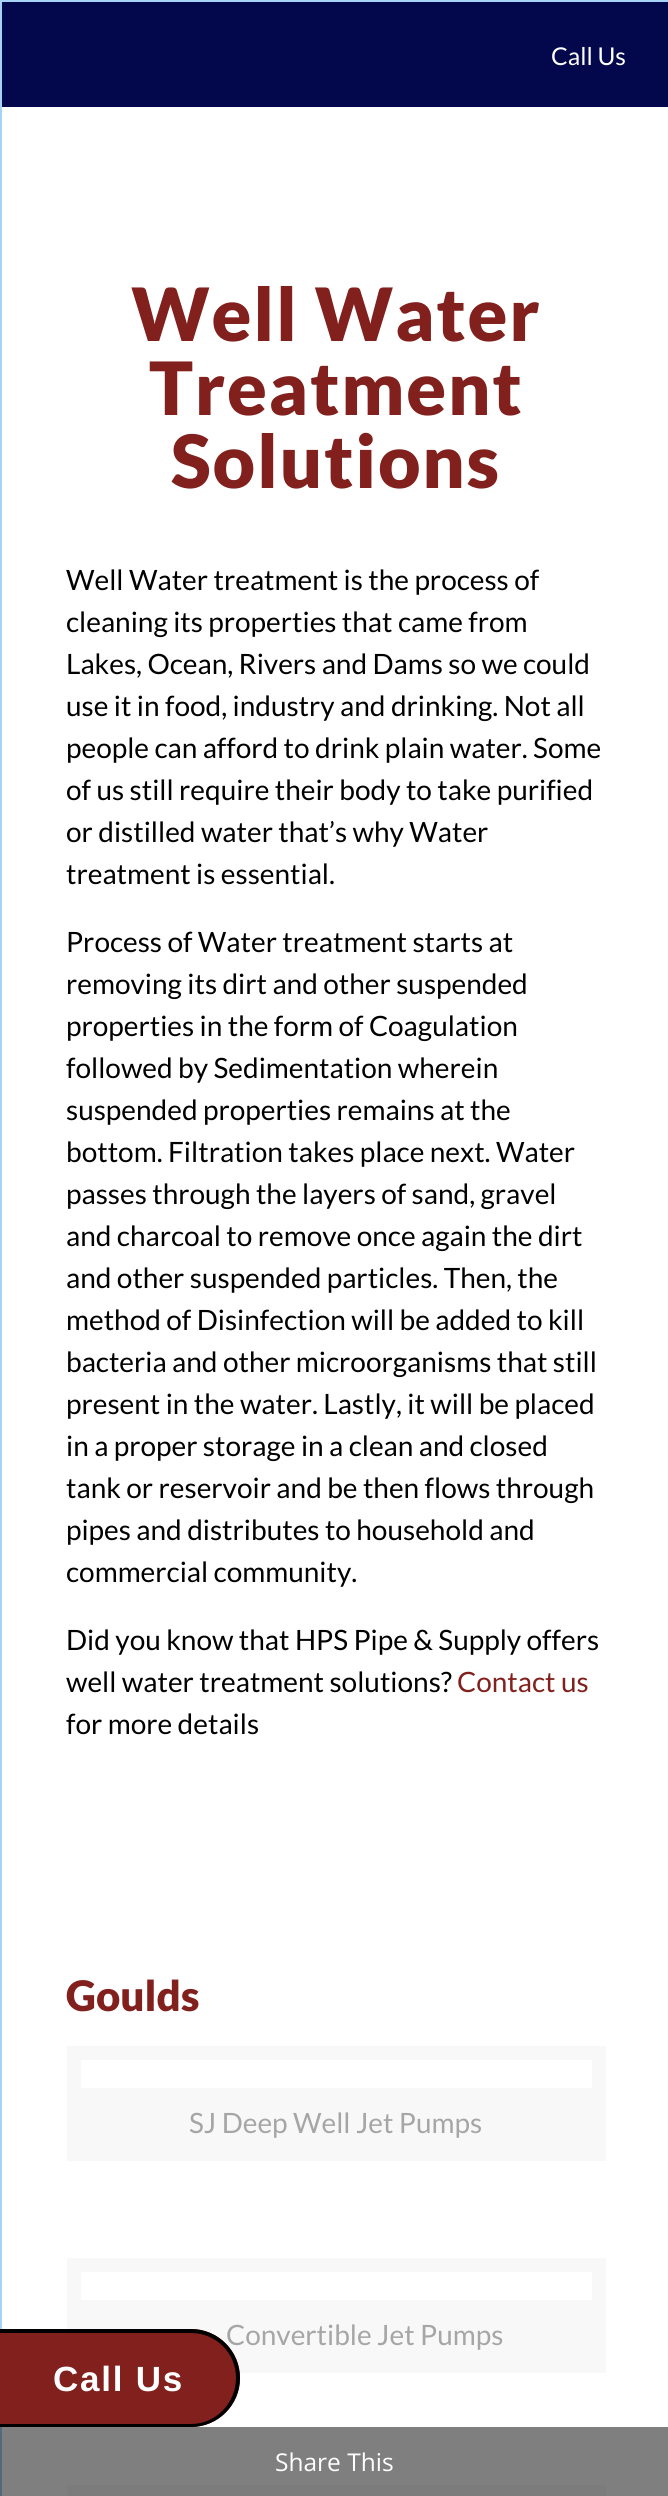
import math
import cairo

surface = cairo.ImageSurface(cairo.Format.RGB24, 668, 2496)
ctx = cairo.Context(surface)
options = cairo.FontOptions()
options.set_hint_metrics(cairo.HintMetrics.OFF)
options.set_hint_style(cairo.HintStyle.NONE)
ctx.set_font_options(options)
ctx.set_miter_limit(4)


def ink(r, g, b):
    ctx.set_source_rgb(r / 255, g / 255, b / 255)


def write(x, y, s, family, size, color, bold=False, italic=False):
    ctx.select_font_face(family, cairo.FontSlant.ITALIC if italic else cairo.FontSlant.NORMAL, cairo.FontWeight.BOLD if bold else cairo.FontWeight.NORMAL)
    ctx.set_font_size(size)
    ink(*color)
    ctx.move_to(x, y)
    ctx.show_text(s)


def write_spaced(x, y, s, letter, word):
    ctx.move_to(x, y)
    for ch in s:
        ctx.show_text(ch)
        ctx.rel_move_to(letter + word * (ch == ' '), 0)


def block(x, y, w, h, *color):
    ink(*color)
    ctx.rectangle(x, y, w, h)
    ctx.fill()


s1 = dict(family="Lato", size=24.5, color=(255, 255, 255))
s2 = dict(family="Lato", size=28, color=(0, 0, 0))
s3 = dict(family="Lato", size=28, color=(129, 32, 28))
s4 = dict(family="Lato Black", size=42, color=(129, 32, 28))
s5 = dict(family="Lato", size=28, color=(166, 166, 166))
s6 = dict(family="Open Sans", size=24.5, color=(255, 255, 255))

ink(255, 255, 255)
ctx.paint()
ctx.rectangle(1, 1, 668, 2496)
ink(168, 210, 245)
ctx.stroke()
block(2, 2, 666, 105, 3, 8, 76)
write(551, 65, "Call Us", **s1)
ctx.select_font_face("Lato Black")
ctx.set_font_size(73.5)
ink(129, 32, 28)
write_spaced(131, 341, "Well Water", 1.75, 0)
write_spaced(149, 415, "Treatment", 1.75, 0)
write_spaced(171, 488, "Solutions", 1.75, 0)
write(66, 590, "Well Water treatment is the process of", **s2)
write(66, 632, "cleaning its properties that came from", **s2)
write(66, 674, "Lakes, Ocean, Rivers and Dams so we could", **s2)
write(66, 716, "use it in food, industry and drinking. Not all", **s2)
write(66, 758, "people can afford to drink plain water. Some", **s2)
write(66, 800, "of us still require their body to take purified", **s2)
write(66, 842, "or distilled water that’s why Water", **s2)
write(66, 884, "treatment is essential.", **s2)
write(66, 952, "Process of Water treatment starts at", **s2)
write(66, 994, "removing its dirt and other suspended", **s2)
write(66, 1036, "properties in the form of Coagulation", **s2)
write(66, 1078, "followed by Sedimentation wherein", **s2)
write(66, 1120, "suspended properties remains at the", **s2)
write(66, 1162, "bottom. Filtration takes place next. Water", **s2)
write(66, 1204, "passes through the layers of sand, gravel", **s2)
write(66, 1246, "and charcoal to remove once again the dirt", **s2)
write(66, 1288, "and other suspended particles. Then, the", **s2)
write(66, 1330, "method of Disinfection will be added to kill", **s2)
write(66, 1372, "bacteria and other microorganisms that still", **s2)
write(66, 1414, "present in the water. Lastly, it will be placed", **s2)
write(66, 1456, "in a proper storage in a clean and closed", **s2)
write(66, 1498, "tank or reservoir and be then flows through", **s2)
write(66, 1540, "pipes and distributes to household and", **s2)
write(66, 1582, "commercial community.", **s2)
write(66, 1650, "Did you know that HPS Pipe & Supply offers", **s2)
write(66, 1692, "well water treatment solutions?", **s2)
write(457, 1692, "Contact us", **s3)
write(66, 1734, "for more details", **s2)
write(66, 2011, "Goulds", **s4)
ctx.rectangle(74, 2053, 525, 101)
ink(248, 248, 248)
ctx.set_line_width(14)
ctx.stroke()
block(81, 2088, 511, 59, 248, 248, 248)
write(189, 2133, "SJ Deep Well Jet Pumps", **s5)
ctx.rectangle(74, 2265, 525, 101)
ink(248, 248, 248)
ctx.stroke()
block(81, 2300, 511, 59, 248, 248, 248)
write(226, 2345, "Convertible Jet Pumps", **s5)
ctx.rectangle(74, 2492, 525, 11)
ink(248, 248, 248)
ctx.stroke()
ink(129, 32, 28)
ctx.new_path()
ctx.move_to(0, 2329)
ctx.line_to(191, 2329)
ctx.curve_to(218, 2329, 240, 2351, 240, 2378)
ctx.curve_to(240, 2405, 218, 2427, 191, 2427)
ctx.line_to(0, 2427)
ctx.close_path()
ctx.fill()
ink(0, 0, 0)
ctx.set_fill_rule(cairo.FillRule.EVEN_ODD)
ctx.new_path()
ctx.move_to(0, 2329)
ctx.line_to(191, 2329)
ctx.curve_to(218, 2329, 240, 2351, 240, 2378)
ctx.curve_to(240, 2405, 218, 2427, 191, 2427)
ctx.line_to(0, 2427)
ctx.close_path()
ctx.move_to(0, 2333)
ctx.line_to(191, 2333)
ctx.curve_to(216, 2333, 236, 2353, 236, 2378)
ctx.curve_to(236, 2403, 216, 2424, 191, 2424)
ctx.line_to(0, 2424)
ctx.close_path()
ctx.fill()
ctx.select_font_face("Liberation Sans", cairo.FontSlant.NORMAL, cairo.FontWeight.BOLD)
ctx.set_font_size(35)
ink(255, 255, 255)
write_spaced(53, 2391, "Call Us", 1.75, 0)
ctx.set_source_rgba(0, 0, 0, 0.5)
ctx.rectangle(0, 2427, 668, 69)
ctx.fill()
write(275, 2471, "Share This", **s6)
surface.write_to_png("screenshot.png")
